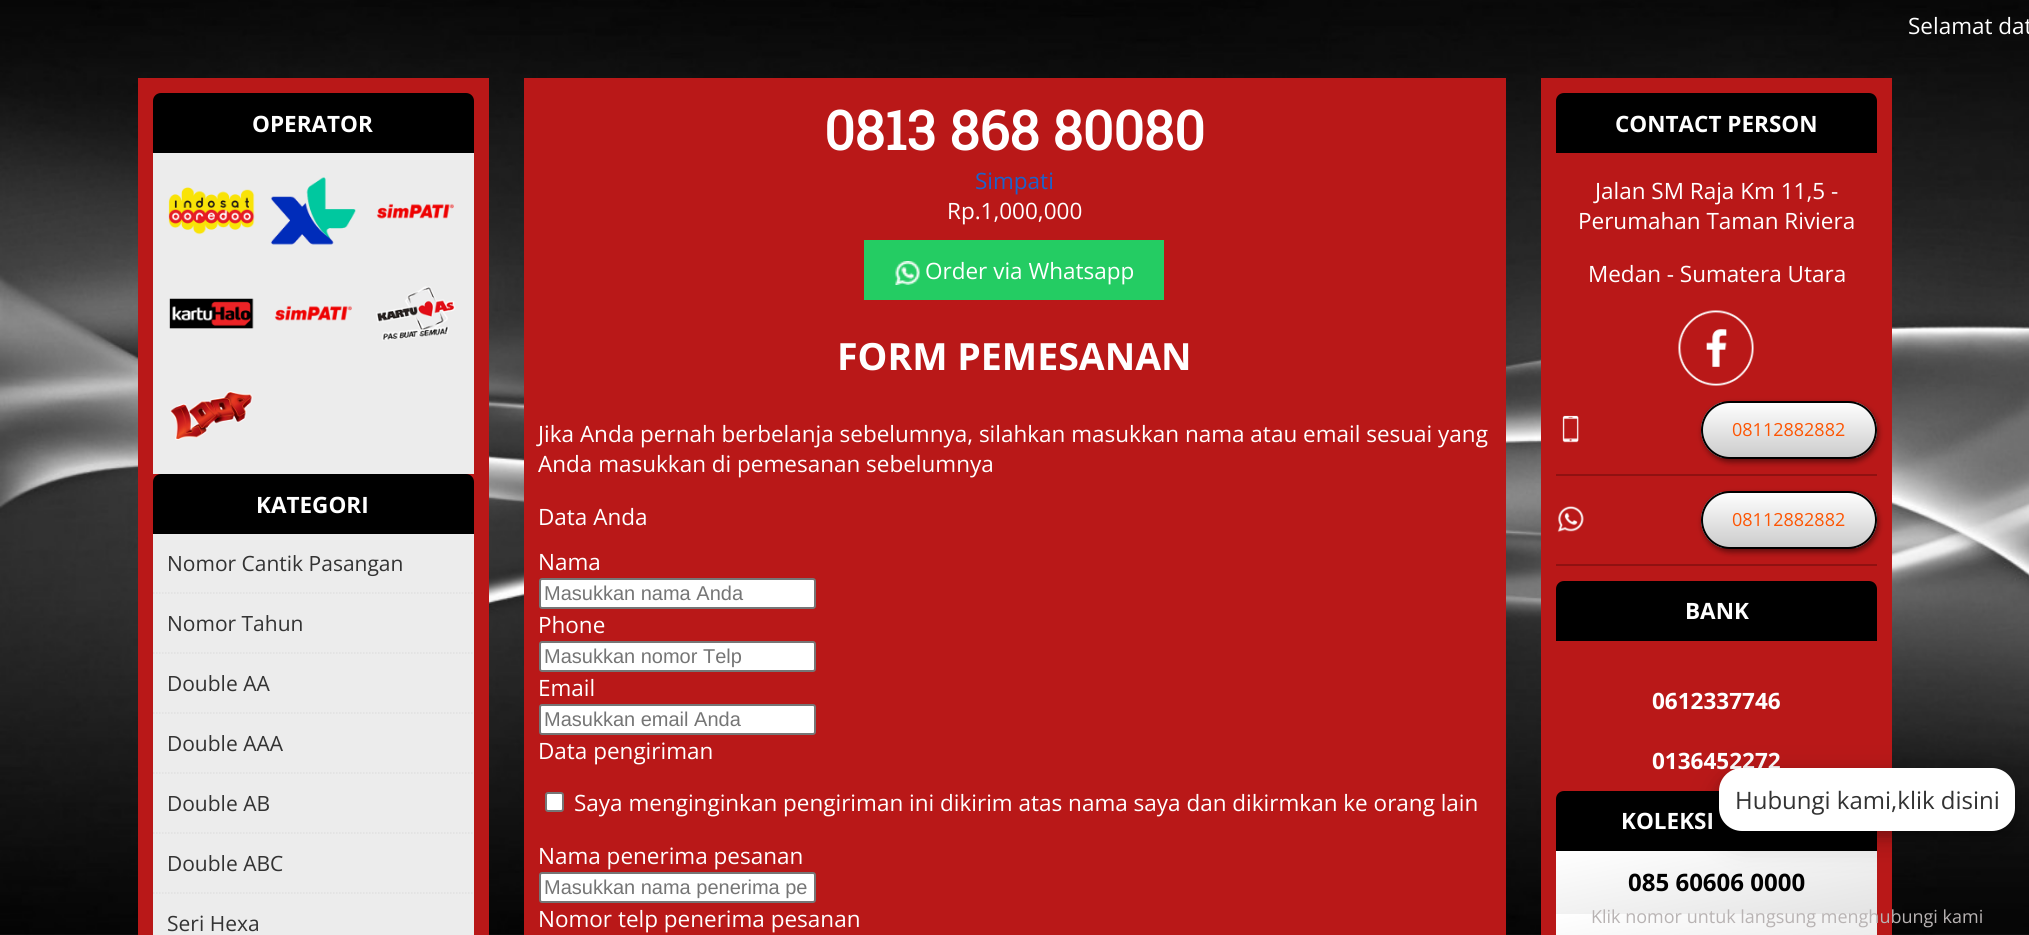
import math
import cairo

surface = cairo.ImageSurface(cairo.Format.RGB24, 2029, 935)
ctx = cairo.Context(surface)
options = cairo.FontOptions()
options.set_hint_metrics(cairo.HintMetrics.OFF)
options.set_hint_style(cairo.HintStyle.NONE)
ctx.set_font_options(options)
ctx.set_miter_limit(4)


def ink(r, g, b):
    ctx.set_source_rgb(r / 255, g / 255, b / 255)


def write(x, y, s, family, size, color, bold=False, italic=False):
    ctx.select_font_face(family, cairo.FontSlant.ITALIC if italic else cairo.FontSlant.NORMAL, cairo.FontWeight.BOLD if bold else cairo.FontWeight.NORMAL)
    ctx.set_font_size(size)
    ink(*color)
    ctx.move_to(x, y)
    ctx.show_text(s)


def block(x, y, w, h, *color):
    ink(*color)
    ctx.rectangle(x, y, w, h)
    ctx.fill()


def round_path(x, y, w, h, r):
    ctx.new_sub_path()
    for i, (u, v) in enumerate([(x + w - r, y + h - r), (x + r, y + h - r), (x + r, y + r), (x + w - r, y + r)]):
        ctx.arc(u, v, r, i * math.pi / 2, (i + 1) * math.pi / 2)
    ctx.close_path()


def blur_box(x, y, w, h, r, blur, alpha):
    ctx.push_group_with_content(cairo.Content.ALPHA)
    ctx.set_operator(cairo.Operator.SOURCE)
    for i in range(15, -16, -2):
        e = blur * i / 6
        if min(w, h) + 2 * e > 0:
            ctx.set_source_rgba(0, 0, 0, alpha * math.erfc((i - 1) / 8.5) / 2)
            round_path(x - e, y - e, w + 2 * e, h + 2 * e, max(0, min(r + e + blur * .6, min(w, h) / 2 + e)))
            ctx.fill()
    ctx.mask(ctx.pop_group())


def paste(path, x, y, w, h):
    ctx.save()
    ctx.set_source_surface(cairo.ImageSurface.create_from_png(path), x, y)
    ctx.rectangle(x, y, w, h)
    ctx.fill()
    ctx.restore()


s1 = dict(family="Open Sans", size=22.5, color=(255, 255, 255))
s2 = dict(family="Open Sans", size=22.5, color=(255, 255, 255), bold=True)
s3 = dict(family="Open Sans", size=21, color=(51, 51, 51))
s4 = dict(family="Roboto Slab", size=54, color=(255, 255, 255), bold=True)
s5 = dict(family="Open Sans", size=22.5, color=(27, 98, 204))
s6 = dict(family="Open Sans", size=37.5, color=(255, 255, 255), bold=True)
s7 = dict(family="Liberation Sans", size=20, color=(117, 117, 117))
s8 = dict(family="Open Sans", size=18, color=(253, 85, 3))
s9 = dict(family="Open Sans", size=24, color=(0, 0, 0), bold=True)
s10 = dict(family="Open Sans", size=24, color=(51, 51, 51))
s11 = dict(family="Open Sans", size=18, color=(184, 179, 179))

ink(255, 255, 255)
ctx.paint()
paste("pic1.png", 0, 0, 2029, 935)
write(1908, 34, "Selamat dat", **s1)
block(138, 78, 351, 857, 185, 24, 24)
ink(0, 0, 0)
ctx.new_path()
ctx.move_to(161, 93)
ctx.line_to(466, 93)
ctx.curve_to(470.5, 93, 474, 96.5, 474, 101)
ctx.line_to(474, 153)
ctx.line_to(153, 153)
ctx.line_to(153, 101)
ctx.curve_to(153, 96.5, 156.5, 93, 161, 93)
ctx.close_path()
ctx.fill()
write(252, 132, "OPERATOR", **s2)
block(153, 153, 321, 321, 236, 236, 236)
paste("pic2.png", 168, 187, 87, 48)
paste("pic3.png", 270, 177, 86, 68)
paste("pic4.png", 376, 203, 78, 16)
paste("pic5.png", 169, 298, 85, 31)
paste("pic6.png", 274, 305, 78, 16)
paste("pic7.png", 376, 286, 80, 55)
paste("pic8.png", 170, 391, 83, 49)
ink(0, 0, 0)
ctx.new_path()
ctx.move_to(161, 474)
ctx.line_to(466, 474)
ctx.curve_to(470.5, 474, 474, 477.5, 474, 482)
ctx.line_to(474, 534)
ctx.line_to(153, 534)
ctx.line_to(153, 482)
ctx.curve_to(153, 477.5, 156.5, 474, 161, 474)
ctx.close_path()
ctx.fill()
write(256, 513, "KATEGORI", **s2)
block(153, 534, 321, 401, 236, 236, 236)
ctx.new_path()
ctx.move_to(153, 593)
ctx.line_to(474, 593)
ink(224, 224, 224)
ctx.set_line_width(1.5)
ctx.set_dash([1.5, 1.5])
ctx.stroke()
write(167, 571, "Nomor Cantik Pasangan", **s3)
ctx.new_path()
ctx.move_to(153, 653)
ctx.line_to(474, 653)
ink(224, 224, 224)
ctx.stroke()
write(167, 631, "Nomor Tahun", **s3)
ctx.new_path()
ctx.move_to(153, 713)
ctx.line_to(474, 713)
ink(224, 224, 224)
ctx.stroke()
write(167, 691, "Double AA", **s3)
ctx.new_path()
ctx.move_to(153, 773)
ctx.line_to(474, 773)
ink(224, 224, 224)
ctx.stroke()
write(167, 751, "Double AAA", **s3)
ctx.new_path()
ctx.move_to(153, 833)
ctx.line_to(474, 833)
ink(224, 224, 224)
ctx.stroke()
write(167, 811, "Double AB", **s3)
ctx.new_path()
ctx.move_to(153, 893)
ctx.line_to(474, 893)
ink(224, 224, 224)
ctx.stroke()
write(167, 871, "Double ABC", **s3)
write(167, 931, "Seri Hexa", **s3)
block(524, 78, 982, 857, 185, 24, 24)
write(824, 150, "0813 868 80080", **s4)
write(975, 189, "Simpati", **s5)
write(947, 219, "Rp.1,000,000", **s1)
block(864, 240, 300, 60, 36, 204, 99)
paste("pic9.png", 895, 261, 25, 24)
write(925, 279, "Order via Whatsapp", **s1)
write(837, 370, "FORM PEMESANAN", **s6)
write(538, 442, "Jika Anda pernah berbelanja sebelumnya, silahkan masukkan nama atau email sesuai yang", **s1)
write(538, 472, "Anda masukkan di pemesanan sebelumnya", **s1)
write(538, 525, "Data Anda", **s1)
write(538, 570, "Nama", **s1)
round_path(540, 579, 275, 29, 2)
ctx.fill_preserve()
ink(118, 118, 118)
ctx.set_line_width(2)
ctx.set_dash([])
ctx.stroke()
write(544, 600, "Masukkan nama Anda", **s7)
write(538, 633, "Phone", **s1)
round_path(540, 642, 275, 29, 2)
ctx.fill_preserve()
ink(118, 118, 118)
ctx.stroke()
write(544, 663, "Masukkan nomor Telp", **s7)
write(538, 696, "Email", **s1)
round_path(540, 705, 275, 29, 2)
ctx.fill_preserve()
ink(118, 118, 118)
ctx.stroke()
write(544, 726, "Masukkan email Anda", **s7)
write(538, 759, "Data pengiriman", **s1)
round_path(546, 793, 17, 18, 2)
ctx.fill_preserve()
ink(118, 118, 118)
ctx.stroke()
write(574, 811, "Saya menginginkan pengiriman ini dikirim atas nama saya dan dikirmkan ke orang lain", **s1)
write(538, 864, "Nama penerima pesanan", **s1)
round_path(540, 873, 275, 29, 2)
ctx.fill_preserve()
ink(118, 118, 118)
ctx.stroke()
write(544, 894, "Masukkan nama penerima pe", **s7)
write(538, 927, "Nomor telp penerima pesanan", **s1)
block(1541, 78, 351, 857, 185, 24, 24)
ink(0, 0, 0)
ctx.new_path()
ctx.move_to(1564, 93)
ctx.line_to(1869, 93)
ctx.curve_to(1873.5, 93, 1877, 96.5, 1877, 101)
ctx.line_to(1877, 153)
ctx.line_to(1556, 153)
ctx.line_to(1556, 101)
ctx.curve_to(1556, 96.5, 1559.5, 93, 1564, 93)
ctx.close_path()
ctx.fill()
write(1615, 132, "CONTACT PERSON", **s2)
write(1595, 199, "Jalan SM Raja Km 11,5 -", **s1)
write(1578, 229, "Perumahan Taman Riviera", **s1)
write(1588, 282, "Medan - Sumatera Utara", **s1)
paste("pic10.png", 1678, 310, 76, 76)
block(1556, 474, 321, 2, 144, 17, 17)
paste("pic11.png", 1562, 415, 17, 28)
ink(0, 0, 0)
blur_box(1703, 404, 175, 58, 29, 3, 0.5)
ctx.save()
round_path(1701, 401, 176, 58, 29)
ctx.clip()
gradient = cairo.LinearGradient(1789, 402, 1789, 458)
gradient.add_color_stop_rgba(0, 1, 1, 1, 1)
gradient.add_color_stop_rgba(1, 0.796, 0.796, 0.796, 1)
ctx.set_source(gradient)
ctx.rectangle(1701, 402, 176, 56)
ctx.fill()
ctx.restore()
round_path(1702, 402, 174, 56, 28)
ink(0, 0, 0)
ctx.stroke()
write(1732, 436, "08112882882", **s8)
block(1556, 564, 321, 2, 144, 17, 17)
paste("pic12.png", 1557, 506, 27, 27)
ink(0, 0, 0)
blur_box(1703, 494, 175, 58, 29, 3, 0.5)
ctx.save()
round_path(1701, 491, 176, 58, 29)
ctx.clip()
gradient = cairo.LinearGradient(1789, 492, 1789, 548)
gradient.add_color_stop_rgba(0, 1, 1, 1, 1)
gradient.add_color_stop_rgba(1, 0.796, 0.796, 0.796, 1)
ctx.set_source(gradient)
ctx.rectangle(1701, 492, 176, 56)
ctx.fill()
ctx.restore()
round_path(1702, 492, 174, 56, 28)
ink(0, 0, 0)
ctx.stroke()
write(1732, 526, "08112882882", **s8)
ink(0, 0, 0)
ctx.new_path()
ctx.move_to(1564, 581)
ctx.line_to(1869, 581)
ctx.curve_to(1873.5, 581, 1877, 584.5, 1877, 589)
ctx.line_to(1877, 641)
ctx.line_to(1556, 641)
ctx.line_to(1556, 589)
ctx.curve_to(1556, 584.5, 1559.5, 581, 1564, 581)
ctx.close_path()
ctx.fill()
write(1685, 619, "BANK", **s2)
write(1652, 709, "0612337746", **s2)
write(1652, 769, "0136452272", **s2)
ink(0, 0, 0)
ctx.new_path()
ctx.move_to(1564, 791)
ctx.line_to(1869, 791)
ctx.curve_to(1873.5, 791, 1877, 794.5, 1877, 799)
ctx.line_to(1877, 851)
ctx.line_to(1556, 851)
ctx.line_to(1556, 799)
ctx.curve_to(1556, 794.5, 1559.5, 791, 1564, 791)
ctx.close_path()
ctx.fill()
write(1621, 829, "KOLEKSI", **s2)
gradient = cairo.LinearGradient(1704, 821, 1728, 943)
gradient.add_color_stop_rgba(0, 1, 1, 1, 1)
gradient.add_color_stop_rgba(1, 0.894, 0.894, 0.894, 1)
ctx.set_source(gradient)
ctx.rectangle(1556, 851, 321, 63)
ctx.fill()
write(1628, 891, "085 60606 0000", **s9)
gradient = cairo.LinearGradient(1704, 884, 1728, 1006)
gradient.add_color_stop_rgba(0, 1, 1, 1, 1)
gradient.add_color_stop_rgba(1, 0.894, 0.894, 0.894, 1)
ctx.set_source(gradient)
ctx.rectangle(1556, 914, 321, 21)
ctx.fill()
ink(0, 0, 0)
blur_box(1719, 777, 296, 63, 23, 15, 0.19)
blur_box(1719, 774, 296, 63, 23, 6, 0.2)
ink(255, 255, 255)
round_path(1719, 768, 296, 63, 23)
ctx.fill()
write(1735, 809, "Hubungi kami,klik disini", **s10)
write(1591, 923, "Klik nomor untuk langsung menghubungi kami", **s11)
surface.write_to_png("screenshot.png")
